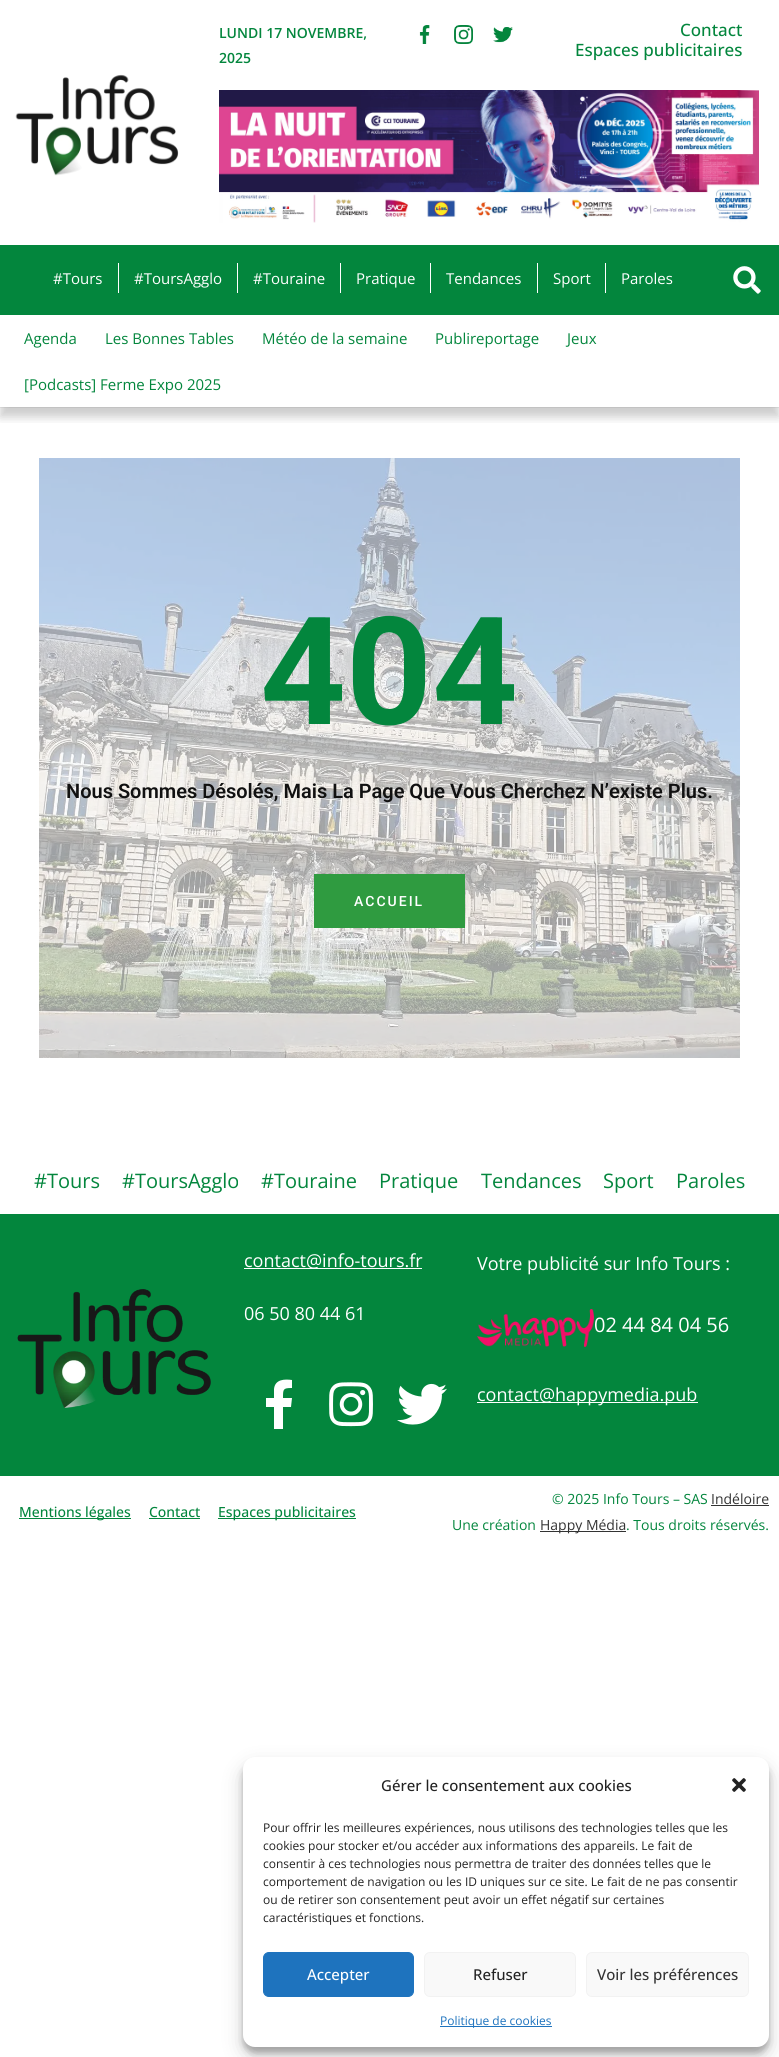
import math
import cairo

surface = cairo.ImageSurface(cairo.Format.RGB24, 779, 2057)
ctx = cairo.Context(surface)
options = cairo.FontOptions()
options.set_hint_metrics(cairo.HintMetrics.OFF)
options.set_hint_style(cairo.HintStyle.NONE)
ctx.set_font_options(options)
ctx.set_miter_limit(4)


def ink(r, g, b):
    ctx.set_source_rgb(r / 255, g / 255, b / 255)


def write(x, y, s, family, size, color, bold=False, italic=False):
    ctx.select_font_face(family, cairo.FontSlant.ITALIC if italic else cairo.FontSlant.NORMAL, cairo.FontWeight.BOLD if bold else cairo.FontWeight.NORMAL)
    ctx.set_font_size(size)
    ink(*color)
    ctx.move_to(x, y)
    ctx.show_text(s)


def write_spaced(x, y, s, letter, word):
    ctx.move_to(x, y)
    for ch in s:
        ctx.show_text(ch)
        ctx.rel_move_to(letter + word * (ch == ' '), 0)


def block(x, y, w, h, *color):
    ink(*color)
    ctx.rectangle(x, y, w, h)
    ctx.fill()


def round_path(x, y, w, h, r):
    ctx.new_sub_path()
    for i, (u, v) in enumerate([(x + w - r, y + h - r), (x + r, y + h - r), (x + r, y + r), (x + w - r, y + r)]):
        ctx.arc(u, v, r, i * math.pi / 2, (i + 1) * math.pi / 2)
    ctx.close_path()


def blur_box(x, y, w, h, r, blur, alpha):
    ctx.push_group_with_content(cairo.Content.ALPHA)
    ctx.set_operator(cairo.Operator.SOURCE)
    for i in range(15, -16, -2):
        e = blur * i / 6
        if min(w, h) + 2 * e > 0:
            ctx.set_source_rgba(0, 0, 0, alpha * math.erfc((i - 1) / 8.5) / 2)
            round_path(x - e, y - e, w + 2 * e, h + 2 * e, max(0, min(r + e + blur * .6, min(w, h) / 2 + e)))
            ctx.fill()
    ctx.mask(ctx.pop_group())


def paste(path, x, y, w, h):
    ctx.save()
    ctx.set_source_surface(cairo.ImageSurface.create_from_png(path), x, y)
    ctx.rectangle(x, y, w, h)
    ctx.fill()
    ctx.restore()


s1 = dict(family="Open Sans SemiBold", size=14, color=(3, 134, 61))
s2 = dict(family="Open Sans Medium", size=17, color=(3, 134, 61))
s3 = dict(family="Open Sans", size=15, color=(255, 255, 255))
s4 = dict(family="Open Sans", size=15, color=(3, 134, 61))
s5 = dict(family="Roboto", size=150, color=(3, 134, 61), bold=True)
s6 = dict(family="Roboto SemiBold", size=20, color=(17, 17, 17))
s7 = dict(family="Open Sans", size=20, color=(3, 134, 61))
s8 = dict(family="Open Sans", size=18, color=(255, 255, 255))
s9 = dict(family="Open Sans", size=20, color=(255, 255, 255))
s10 = dict(family="Open Sans Medium", size=14, color=(3, 134, 61))
s11 = dict(family="Open Sans", size=14, color=(3, 134, 61))
s12 = dict(family="Open Sans", size=14, color=(51, 51, 51))
s13 = dict(family="Open Sans Medium", size=15, color=(34, 34, 34))
s14 = dict(family="Open Sans", size=12, color=(34, 34, 34))
s15 = dict(family="Open Sans Medium", size=15, color=(255, 255, 255))
s16 = dict(family="Open Sans Medium", size=15, color=(51, 51, 51))
s17 = dict(family="Open Sans", size=12, color=(30, 115, 190))

ink(255, 255, 255)
ctx.paint()
block(0, 407, 779, 1, 241, 241, 241)
write(219, 38, "LUNDI 17 NOVEMBRE,", **s1)
write(219, 63, "2025", **s1)
paste("pic1.png", 419, 25, 11, 19)
paste("pic2.png", 454, 25, 19, 19)
paste("pic3.png", 493, 27, 20, 16)
write(680, 36, "Contact", **s2)
write(575, 56, "Espaces publicitaires", **s2)
paste("pic4.png", 219, 90, 540, 133)
paste("pic5.png", 15, 74, 164, 102)
block(0, 245, 779, 70, 3, 134, 61)
write(53, 284, "#Tours", **s3)
block(118, 263, 1, 30, 255, 255, 255)
write(134, 284, "#ToursAgglo", **s3)
block(237, 263, 1, 30, 255, 255, 255)
write(253, 284, "#Touraine", **s3)
block(340, 263, 1, 30, 255, 255, 255)
write(356, 284, "Pratique", **s3)
block(430, 263, 1, 30, 255, 255, 255)
write(446, 284, "Tendances", **s3)
block(537, 263, 1, 30, 255, 255, 255)
write(553, 284, "Sport", **s3)
block(605, 263, 1, 30, 255, 255, 255)
write(621, 284, "Paroles", **s3)
paste("pic6.png", 733, 266, 28, 28)
ctx.save()
ctx.rectangle(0, 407, 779, 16)
ctx.clip()
ink(0, 0, 0)
blur_box(0, 325, 779, 92, 0, 5, 0.2)
ctx.restore()
write(24, 344, "Agenda", **s4)
write(105, 344, "Les Bonnes Tables", **s4)
write(262, 344, "Météo de la semaine", **s4)
write(435, 344, "Publireportage", **s4)
write(567, 344, "Jeux", **s4)
write(24, 390, "[Podcasts] Ferme Expo 2025", **s4)
paste("pic7.png", 39, 458, 701, 600)
write(260, 724, "404", **s5)
write(66, 798, "Nous Sommes Désolés, Mais La Page Que Vous Cherchez N’existe Plus.", **s6)
block(314, 874, 151, 54, 47, 155, 64)
ctx.select_font_face("Roboto Medium")
ctx.set_font_size(14)
ink(255, 255, 255)
write_spaced(354, 906, "ACCUEIL", 2, 0)
write(34, 1188, "#Tours", **s7)
write(122, 1188, "#ToursAgglo", **s7)
write(261, 1188, "#Touraine", **s7)
write(379, 1188, "Pratique", **s7)
write(481, 1188, "Tendances", **s7)
write(603, 1188, "Sport", **s7)
write(676, 1188, "Paroles", **s7)
block(0, 1214, 779, 262, 3, 134, 61)
paste("pic8.png", 17, 1289, 194, 119)
block(244, 1268, 178, 1, 255, 255, 255)
write(244, 1267, "contact@info-tours.fr", **s8)
write(244, 1320, "06 50 80 44 61", **s8)
ctx.new_path()
ctx.move_to(291, 1407)
ctx.line_to(283, 1407)
ctx.line_to(283, 1429)
ctx.line_to(274, 1429)
ctx.line_to(274, 1407)
ctx.line_to(266, 1407)
ctx.line_to(266, 1398)
ctx.line_to(274, 1398)
ctx.line_to(274, 1389)
ctx.curve_to(275, 1379, 285, 1379, 292, 1380)
ctx.line_to(292, 1388)
ctx.curve_to(283, 1388, 283, 1389, 283, 1398)
ctx.line_to(292, 1398)
ctx.close_path()
ctx.fill()
paste("pic9.png", 329, 1382, 44, 45)
paste("pic10.png", 397, 1383, 50, 42)
write(477, 1270, "Votre publicité sur Info Tours :", **s8)
paste("pic11.png", 477, 1309, 117, 38)
write(594, 1332, "02 44 84 04 56", **s9)
block(477, 1402, 221, 1, 255, 255, 255)
write(477, 1401, "contact@happymedia.pub", **s8)
block(19, 1518, 112, 1, 3, 134, 61)
write(19, 1517, "Mentions légales", **s10)
write(149, 1517, "Contact", **s10)
block(149, 1518, 51, 1, 3, 134, 61)
block(218, 1518, 138, 1, 3, 134, 61)
write(218, 1517, "Espaces publicitaires", **s10)
write(552, 1504, "© 2025 Info Tours – SAS", **s11)
write(711, 1504, "Indéloire", **s12)
block(711, 1505, 58, 1, 51, 51, 51)
write(452, 1530, "Une création", **s11)
block(540, 1531, 86, 1, 51, 51, 51)
write(540, 1530, "Happy Média", **s12)
write(626, 1530, ". Tous droits réservés.", **s11)
ink(0, 0, 0)
blur_box(243, 1763, 526, 290, 12, 3, 0.23)
blur_box(243, 1767, 526, 290, 12, 10, 0.19)
ink(255, 255, 255)
round_path(243, 1757, 526, 290, 12)
ctx.fill()
write(381, 1791, "Gérer le consentement aux cookies", **s13)
paste("pic12.png", 732, 1778, 14, 14)
write(263, 1832, "Pour offrir les meilleures expériences, nous utilisons des technologies telles que les", **s14)
write(263, 1850, "cookies pour stocker et/ou accéder aux informations des appareils. Le fait de", **s14)
write(263, 1868, "consentir à ces technologies nous permettra de traiter des données telles que le", **s14)
write(263, 1886, "comportement de navigation ou les ID uniques sur ce site. Le fait de ne pas consentir", **s14)
write(263, 1904, "ou de retirer son consentement peut avoir un effet négatif sur certaines", **s14)
write(263, 1922, "caractéristiques et fonctions.", **s14)
ink(30, 115, 190)
round_path(263.5, 1952.5, 150, 44, 5.5)
ctx.fill_preserve()
ctx.set_line_width(1)
ctx.stroke()
write(307, 1980, "Accepter", **s15)
ink(249, 249, 249)
round_path(424.5, 1952.5, 151, 44, 5.5)
ctx.fill_preserve()
ink(242, 242, 242)
ctx.stroke()
write(473, 1980, "Refuser", **s13)
ink(249, 249, 249)
round_path(586.5, 1952.5, 162, 44, 5.5)
ctx.fill_preserve()
ink(242, 242, 242)
ctx.stroke()
write(597, 1980, "Voir les préférences", **s16)
block(440, 2026, 112, 1, 30, 115, 190)
write(440, 2025, "Politique de cookies", **s17)
surface.write_to_png("screenshot.png")
